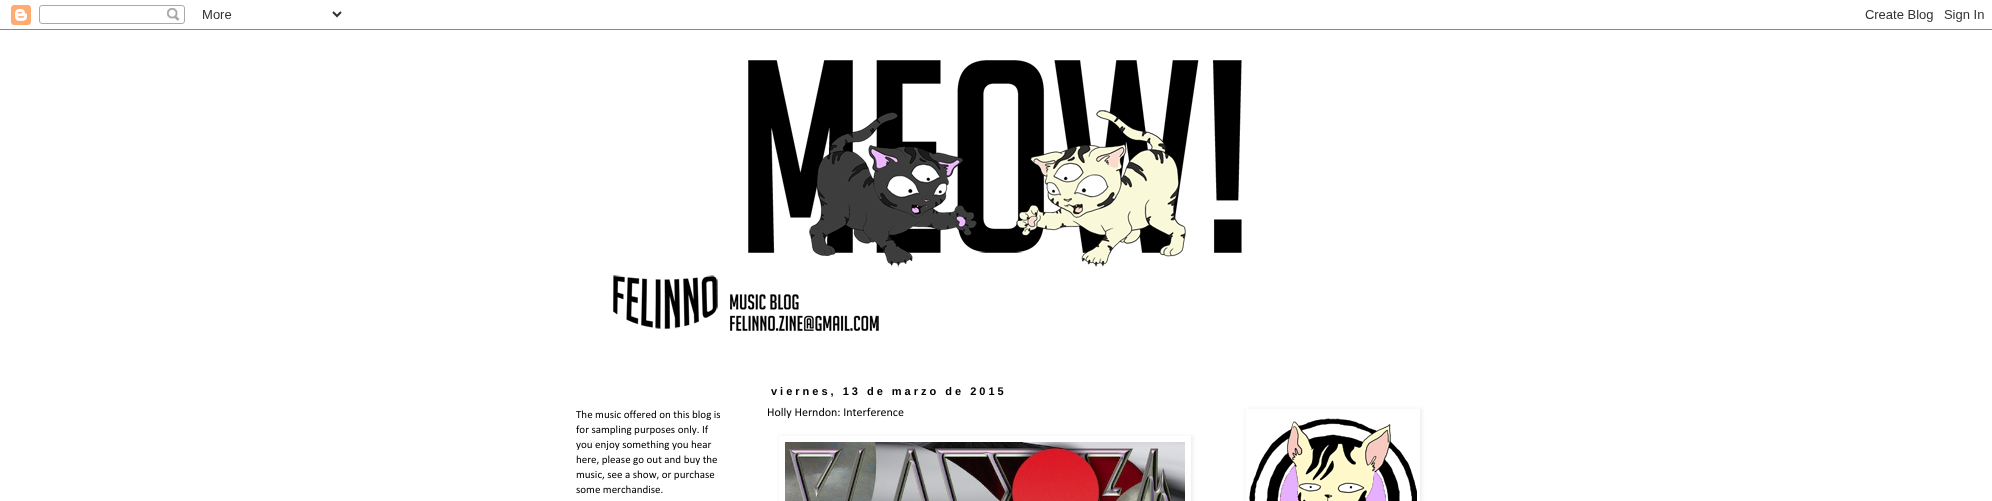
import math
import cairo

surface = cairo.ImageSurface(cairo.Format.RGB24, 1992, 501)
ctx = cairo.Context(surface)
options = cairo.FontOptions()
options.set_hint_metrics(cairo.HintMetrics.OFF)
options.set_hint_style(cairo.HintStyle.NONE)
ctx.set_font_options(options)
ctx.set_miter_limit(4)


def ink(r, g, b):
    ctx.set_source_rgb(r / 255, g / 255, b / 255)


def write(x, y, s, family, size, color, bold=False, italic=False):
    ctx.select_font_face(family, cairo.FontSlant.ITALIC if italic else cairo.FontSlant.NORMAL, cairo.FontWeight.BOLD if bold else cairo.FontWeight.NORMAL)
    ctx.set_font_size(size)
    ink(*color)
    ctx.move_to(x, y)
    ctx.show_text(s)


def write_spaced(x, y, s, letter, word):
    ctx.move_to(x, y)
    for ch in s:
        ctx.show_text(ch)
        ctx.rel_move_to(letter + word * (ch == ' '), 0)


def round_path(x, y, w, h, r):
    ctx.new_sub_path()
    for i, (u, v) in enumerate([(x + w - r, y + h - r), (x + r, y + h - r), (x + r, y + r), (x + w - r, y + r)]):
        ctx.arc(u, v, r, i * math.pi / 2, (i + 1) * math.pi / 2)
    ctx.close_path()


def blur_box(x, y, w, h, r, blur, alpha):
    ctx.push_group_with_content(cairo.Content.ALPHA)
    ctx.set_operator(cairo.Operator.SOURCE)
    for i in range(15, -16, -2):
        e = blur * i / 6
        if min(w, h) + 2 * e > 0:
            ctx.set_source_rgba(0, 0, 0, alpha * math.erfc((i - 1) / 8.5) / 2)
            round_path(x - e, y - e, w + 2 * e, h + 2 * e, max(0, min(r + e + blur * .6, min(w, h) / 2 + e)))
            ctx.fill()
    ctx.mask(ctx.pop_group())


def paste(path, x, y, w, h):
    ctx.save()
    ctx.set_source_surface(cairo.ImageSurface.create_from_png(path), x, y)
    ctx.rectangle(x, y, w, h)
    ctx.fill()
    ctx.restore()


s1 = dict(family="Calibri", size=11, color=(0, 0, 0))
s2 = dict(family="Calibri", size=12, color=(0, 0, 0))

ink(255, 255, 255)
ctx.paint()
paste("pic1.png", 0, 5, 1992, 25)
paste("pic2.png", 613, 60, 629, 271)
write(576, 418, "The music offered on this blog is", **s1)
write(576, 433, "for sampling purposes only. If", **s1)
write(576, 448, "you enjoy something you hear", **s1)
write(576, 463, "here, please go out and buy the", **s1)
write(576, 478, "music, see a show, or purchase", **s1)
write(576, 493, "some merchandise.", **s1)
ctx.select_font_face("Liberation Sans", cairo.FontSlant.NORMAL, cairo.FontWeight.BOLD)
write_spaced(771, 395, "viernes, 13 de marzo de 2015", 3, 0)
write(767, 416, "Holly Herndon: Interference", **s2)
ctx.save()
ctx.set_fill_rule(cairo.FillRule.EVEN_ODD)
ctx.new_path()
ctx.move_to(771, 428)
ctx.line_to(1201, 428)
ctx.line_to(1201, 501)
ctx.line_to(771, 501)
ctx.close_path()
ctx.move_to(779, 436)
ctx.line_to(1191, 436)
ctx.line_to(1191, 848)
ctx.line_to(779, 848)
ctx.close_path()
ctx.clip()
ink(0, 0, 0)
blur_box(780, 437, 412, 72, 0, 2.5, 0.1)
ctx.restore()
paste("pic3.png", 785, 442, 400, 59)
ctx.save()
ctx.set_fill_rule(cairo.FillRule.EVEN_ODD)
ctx.new_path()
ctx.move_to(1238, 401)
ctx.line_to(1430, 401)
ctx.line_to(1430, 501)
ctx.line_to(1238, 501)
ctx.close_path()
ctx.move_to(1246, 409)
ctx.line_to(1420, 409)
ctx.line_to(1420, 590)
ctx.line_to(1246, 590)
ctx.close_path()
ctx.clip()
ink(0, 0, 0)
blur_box(1247, 410, 174, 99, 0, 2.5, 0.1)
ctx.restore()
paste("pic4.png", 1249, 418, 168, 83)
surface.write_to_png("screenshot.png")
